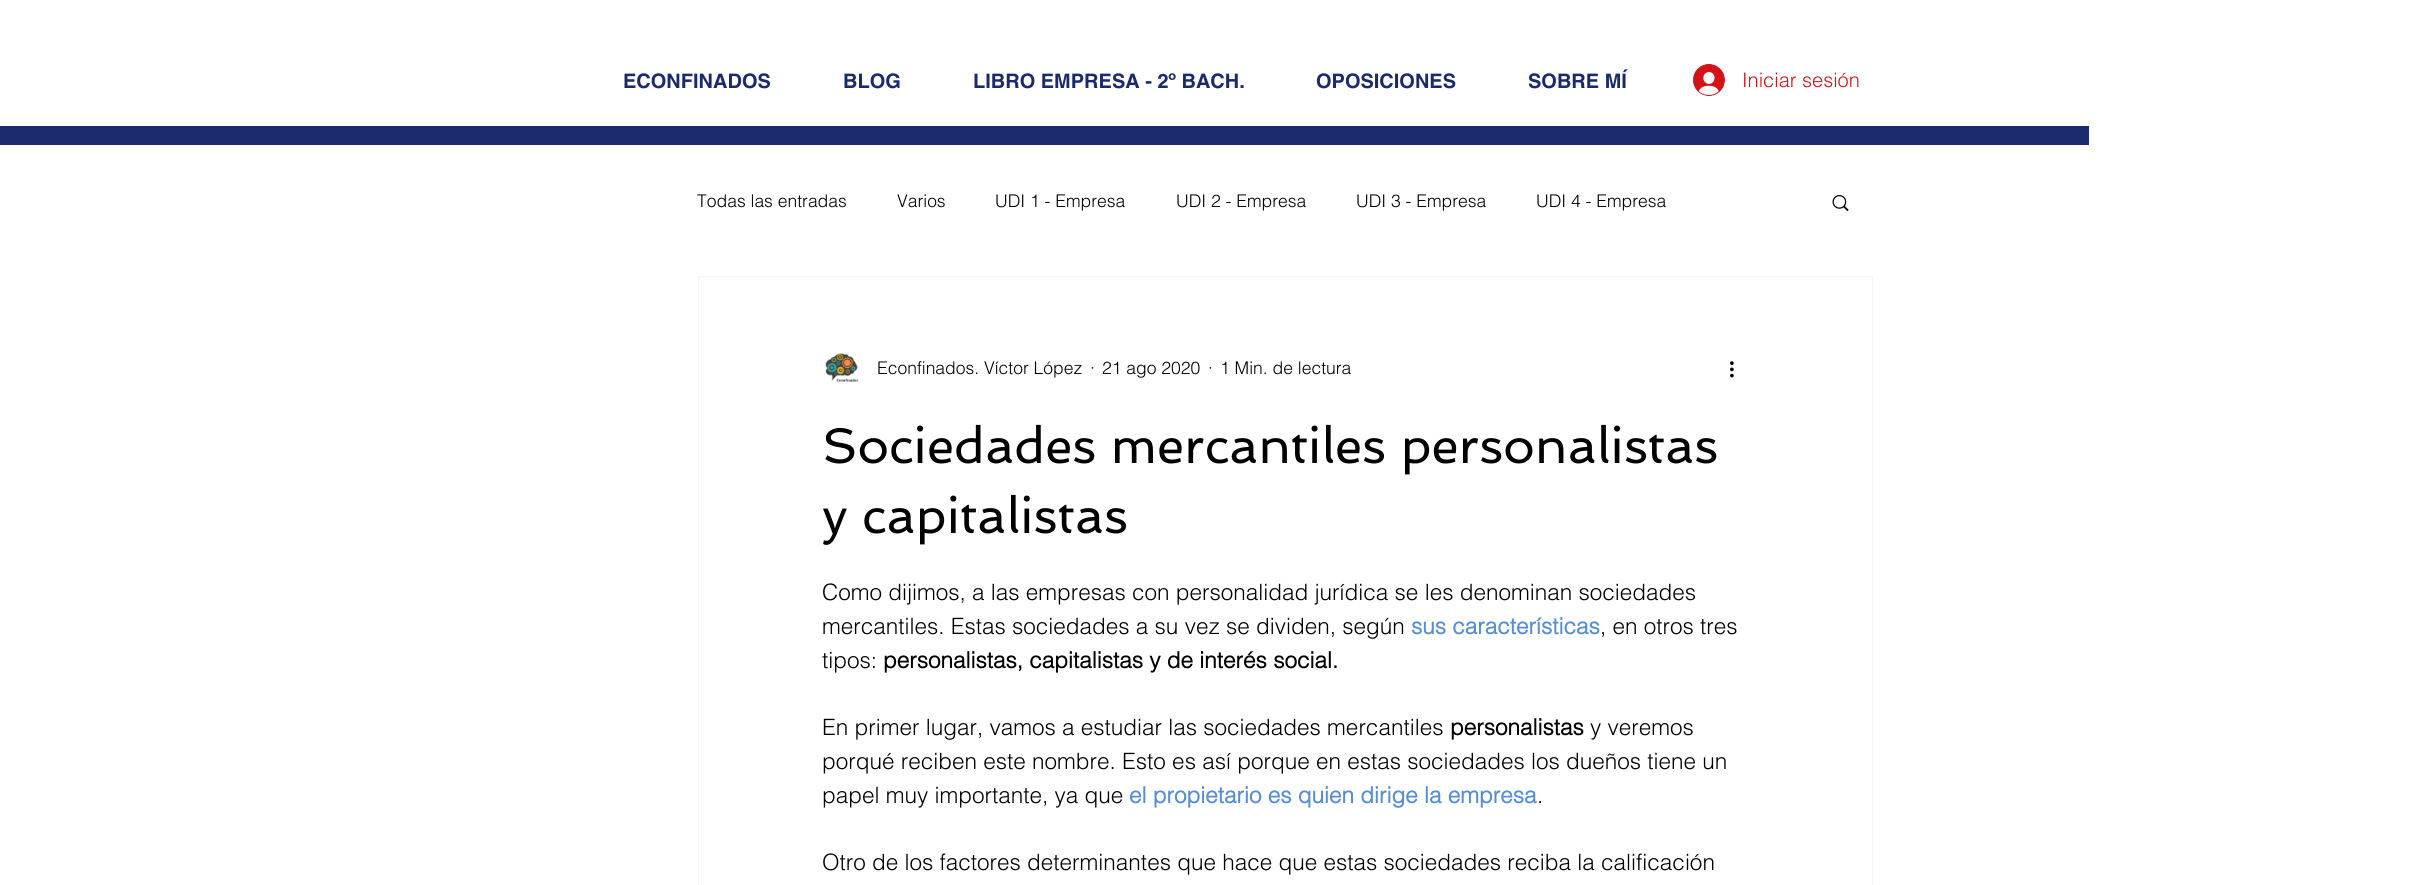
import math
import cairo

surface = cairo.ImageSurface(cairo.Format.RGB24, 2433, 885)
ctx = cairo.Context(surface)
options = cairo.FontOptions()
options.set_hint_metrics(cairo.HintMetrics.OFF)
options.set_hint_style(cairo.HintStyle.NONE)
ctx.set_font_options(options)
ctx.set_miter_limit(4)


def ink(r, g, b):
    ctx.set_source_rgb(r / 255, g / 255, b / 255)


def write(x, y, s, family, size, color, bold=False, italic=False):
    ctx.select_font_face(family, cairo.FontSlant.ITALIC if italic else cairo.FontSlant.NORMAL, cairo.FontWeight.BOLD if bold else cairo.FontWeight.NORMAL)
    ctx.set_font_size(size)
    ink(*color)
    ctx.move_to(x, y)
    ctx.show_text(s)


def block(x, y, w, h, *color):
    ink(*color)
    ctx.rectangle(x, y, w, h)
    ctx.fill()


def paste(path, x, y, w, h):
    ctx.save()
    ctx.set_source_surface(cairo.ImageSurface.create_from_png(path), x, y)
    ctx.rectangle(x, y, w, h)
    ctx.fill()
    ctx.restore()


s1 = dict(family="helvetica", size=20, color=(26, 43, 109), bold=True)
s2 = dict(family="helvetica Light", size=20, color=(212, 19, 23))
s3 = dict(family="helvetica Light", size=17.5, color=(0, 0, 0))
s4 = dict(family="Spinnaker", size=50, color=(0, 0, 0))
s5 = dict(family="helvetica Light", size=22.5, color=(0, 0, 0))
s6 = dict(family="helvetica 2", size=22.5, color=(85, 142, 213), bold=True)
s7 = dict(family="helvetica 2", size=22.5, color=(0, 0, 0), bold=True)

ink(255, 255, 255)
ctx.paint()
write(623, 88, "ECONFINADOS", **s1)
write(843, 88, "BLOG", **s1)
write(973, 88, "LIBRO EMPRESA - 2º BACH.", **s1)
write(1316, 88, "OPOSICIONES", **s1)
write(1528, 88, "SOBRE MÍ", **s1)
paste("pic1.png", 1693, 64, 32, 32)
write(1742, 87, "Iniciar sesión", **s2)
block(0, 126, 2089, 19, 26, 43, 109)
write(697, 207, "Todas las entradas", **s3)
write(897, 207, "Varios", **s3)
write(995, 207, "UDI 1 - Empresa", **s3)
write(1176, 207, "UDI 2 - Empresa", **s3)
write(1356, 207, "UDI 3 - Empresa", **s3)
write(1536, 207, "UDI 4 - Empresa", **s3)
paste("pic2.png", 1832, 195, 17, 17)
ctx.rectangle(698.5, 276.5, 1174, 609)
ink(245, 245, 245)
ctx.set_line_width(1)
ctx.stroke()
paste("pic3.png", 825, 353, 34, 29)
write(877, 374, "Econfinados. Víctor López", **s3)
write(1090, 374, "·", **s3)
write(1102, 374, "21 ago 2020", **s3)
write(1208, 374, "·", **s3)
write(1220, 374, "1 Min. de lectura", **s3)
paste("pic4.png", 1730, 361, 4, 17)
write(822, 463, "Sociedades mercantiles personalistas", **s4)
write(822, 533, "y capitalistas", **s4)
write(822, 600, "Como dijimos, a las empresas con personalidad jurídica se les denominan sociedades", **s5)
write(822, 634, "mercantiles. Estas sociedades a su vez se dividen, según", **s5)
write(1411, 634, "sus características", **s6)
write(1600, 634, ", en otros tres", **s5)
write(822, 668, "tipos:", **s5)
write(883, 668, "personalistas, capitalistas y de interés social.", **s7)
write(822, 735, "En primer lugar, vamos a estudiar las sociedades mercantiles", **s5)
write(1450, 735, "personalistas", **s7)
write(1590, 735, "y veremos", **s5)
write(822, 769, "porqué reciben este nombre. Esto es así porque en estas sociedades los dueños tiene un", **s5)
write(822, 803, "papel muy importante, ya que", **s5)
write(1129, 803, "el propietario es quien dirige la empresa", **s6)
write(1537, 803, ".", **s5)
write(822, 870, "Otro de los factores determinantes que hace que estas sociedades reciba la calificación", **s5)
surface.write_to_png("screenshot.png")
